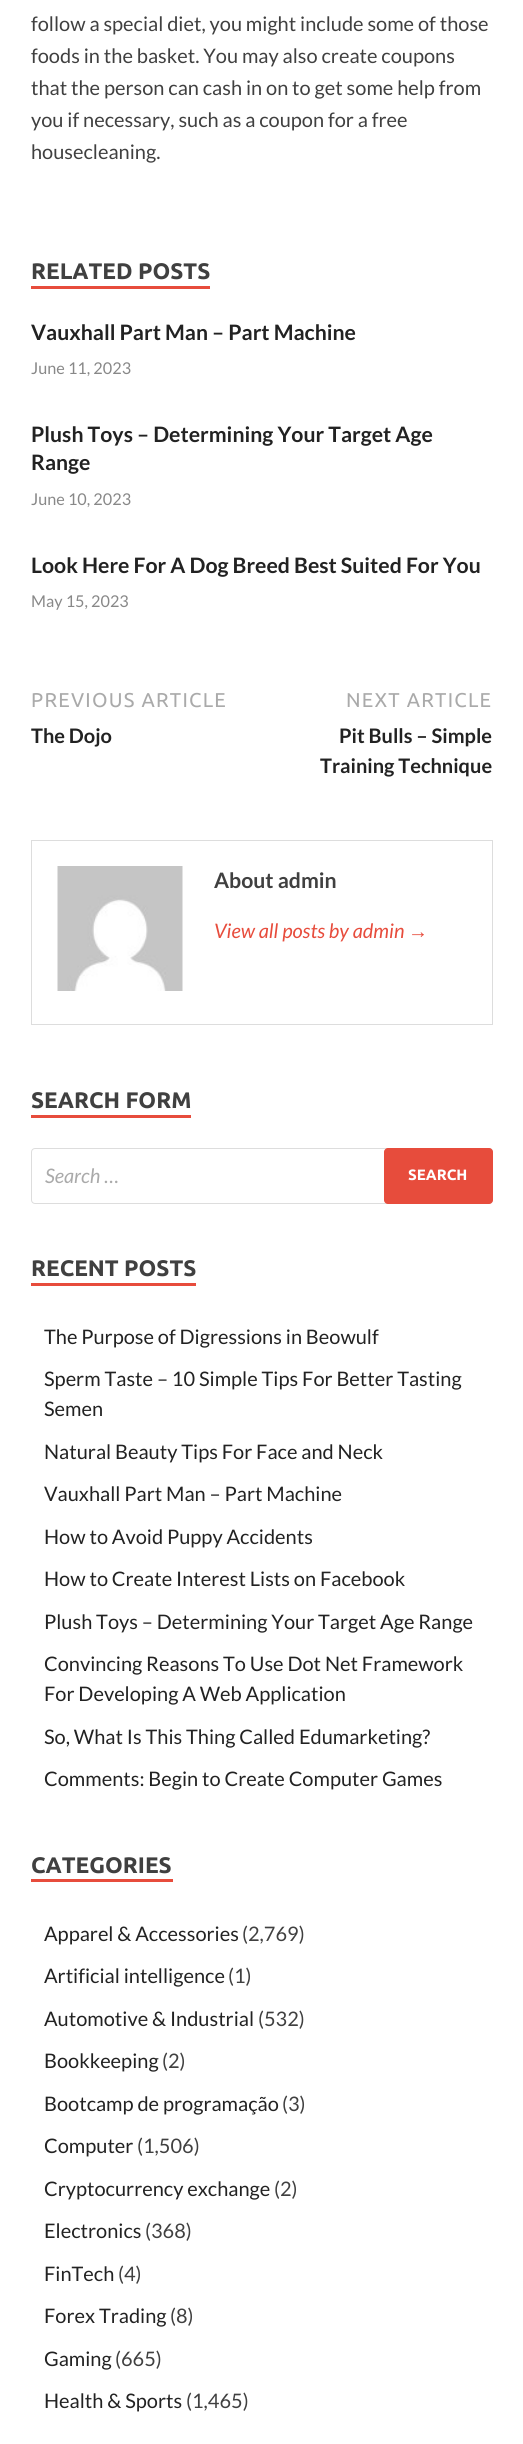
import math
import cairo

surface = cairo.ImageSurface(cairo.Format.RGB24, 523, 2444)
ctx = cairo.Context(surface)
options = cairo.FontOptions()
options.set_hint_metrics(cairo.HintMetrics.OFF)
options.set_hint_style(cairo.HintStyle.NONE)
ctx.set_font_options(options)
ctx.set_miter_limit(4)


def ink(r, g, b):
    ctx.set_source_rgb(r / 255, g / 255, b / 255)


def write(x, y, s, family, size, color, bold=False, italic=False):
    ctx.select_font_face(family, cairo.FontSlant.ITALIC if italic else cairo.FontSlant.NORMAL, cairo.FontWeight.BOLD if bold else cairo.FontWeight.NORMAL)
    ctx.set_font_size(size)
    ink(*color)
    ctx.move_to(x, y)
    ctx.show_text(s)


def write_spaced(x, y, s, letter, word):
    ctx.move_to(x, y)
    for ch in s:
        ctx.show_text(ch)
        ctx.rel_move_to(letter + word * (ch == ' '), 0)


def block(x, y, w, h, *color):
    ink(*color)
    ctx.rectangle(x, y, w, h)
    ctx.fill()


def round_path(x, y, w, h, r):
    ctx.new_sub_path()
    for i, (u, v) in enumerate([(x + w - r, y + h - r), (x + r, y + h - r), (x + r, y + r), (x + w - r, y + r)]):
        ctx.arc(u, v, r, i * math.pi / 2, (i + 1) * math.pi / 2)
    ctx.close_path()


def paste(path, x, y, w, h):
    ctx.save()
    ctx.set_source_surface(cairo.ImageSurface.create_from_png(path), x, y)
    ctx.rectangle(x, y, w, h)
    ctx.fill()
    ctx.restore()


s1 = dict(family="Lato", size=20, color=(64, 64, 64))
s2 = dict(family="Ubuntu", size=22.5, color=(64, 64, 64), bold=True)
s3 = dict(family="Lato", size=21.25, color=(34, 34, 34), bold=True)
s4 = dict(family="Lato", size=16.25, color=(136, 136, 136))
s5 = dict(family="Lato", size=20, color=(34, 34, 34), bold=True)
s6 = dict(family="Lato", size=21.25, color=(64, 64, 64), bold=True)
s7 = dict(family="Lato", size=20, color=(231, 76, 60), italic=True)
s8 = dict(family="Liberation Sans", size=20, color=(231, 76, 60), italic=True)
s9 = dict(family="Lato", size=20, color=(170, 170, 170), italic=True)
s10 = dict(family="Ubuntu", size=15, color=(255, 255, 255), bold=True)
s11 = dict(family="Lato", size=20, color=(34, 34, 34))

ink(255, 255, 255)
ctx.paint()
write(31, 31, "follow a special diet, you might include some of those", **s1)
write(31, 63, "foods in the basket. You may also create coupons", **s1)
write(31, 95, "that the person can cash in on to get some help from", **s1)
write(31, 127, "you if necessary, such as a coupon for a free", **s1)
write(31, 159, "housecleaning.", **s1)
block(31, 286, 179, 3, 231, 76, 60)
write(31, 279, "RELATED POSTS", **s2)
write(31, 340, "Vauxhall Part Man – Part Machine", **s3)
write(31, 374, "June 11, 2023", **s4)
write(31, 442, "Plush Toys – Determining Your Target Age", **s3)
write(31, 470, "Range", **s3)
write(31, 505, "June 10, 2023", **s4)
write(31, 573, "Look Here For A Dog Breed Best Suited For You", **s3)
write(31, 607, "May 15, 2023", **s4)
ctx.select_font_face("Ubuntu")
ctx.set_font_size(20)
ink(170, 170, 170)
write_spaced(31, 707, "PREVIOUS ARTICLE", 1.25, 0)
write(31, 743, "The Dojo", **s5)
ctx.select_font_face("Ubuntu")
ink(170, 170, 170)
write_spaced(346, 707, "NEXT ARTICLE", 1.25, 0)
write(339, 743, "Pit Bulls – Simple", **s5)
write(320, 773, "Training Technique", **s5)
ctx.rectangle(31.5, 840.5, 461, 184)
ink(221, 221, 221)
ctx.set_line_width(1)
ctx.stroke()
paste("pic1.png", 57, 866, 126, 125)
write(214, 888, "About admin", **s6)
write(214, 938, "View all posts by admin", **s7)
write(408, 938, "→", **s8)
block(31, 1115, 160, 3, 231, 76, 60)
write(31, 1108, "SEARCH FORM", **s2)
round_path(31.5, 1148.5, 461, 55, 3.5)
ink(221, 221, 221)
ctx.stroke()
write(45, 1183, "Search …", **s9)
ink(231, 76, 60)
round_path(384, 1148, 109, 56, 4)
ctx.fill()
write(408, 1180, "SEARCH", **s10)
block(31, 1283, 165, 3, 231, 76, 60)
write(31, 1276, "RECENT POSTS", **s2)
write(44, 1344, "The Purpose of Digressions in Beowulf", **s11)
write(44, 1386, "Sperm Taste – 10 Simple Tips For Better Tasting", **s11)
write(44, 1416, "Semen", **s11)
write(44, 1459, "Natural Beauty Tips For Face and Neck", **s11)
write(44, 1501, "Vauxhall Part Man – Part Machine", **s11)
write(44, 1544, "How to Avoid Puppy Accidents", **s11)
write(44, 1586, "How to Create Interest Lists on Facebook", **s11)
write(44, 1629, "Plush Toys – Determining Your Target Age Range", **s11)
write(44, 1671, "Convincing Reasons To Use Dot Net Framework", **s11)
write(44, 1701, "For Developing A Web Application", **s11)
write(44, 1744, "So, What Is This Thing Called Edumarketing?", **s11)
write(44, 1786, "Comments: Begin to Create Computer Games", **s11)
block(31, 1879, 142, 3, 231, 76, 60)
write(31, 1873, "CATEGORIES", **s2)
write(44, 1941, "Apparel & Accessories", **s11)
write(242, 1941, "(2,769)", **s1)
write(44, 1983, "Artificial intelligence", **s11)
write(228, 1983, "(1)", **s1)
write(44, 2026, "Automotive & Industrial", **s11)
write(258, 2026, "(532)", **s1)
write(44, 2068, "Bookkeeping", **s11)
write(162, 2068, "(2)", **s1)
write(44, 2111, "Bootcamp de programação", **s11)
write(282, 2111, "(3)", **s1)
write(44, 2153, "Computer", **s11)
write(137, 2153, "(1,506)", **s1)
write(44, 2196, "Cryptocurrency exchange", **s11)
write(274, 2196, "(2)", **s1)
write(44, 2238, "Electronics", **s11)
write(145, 2238, "(368)", **s1)
write(44, 2281, "FinTech", **s11)
write(118, 2281, "(4)", **s1)
write(44, 2323, "Forex Trading", **s11)
write(170, 2323, "(8)", **s1)
write(44, 2366, "Gaming", **s11)
write(115, 2366, "(665)", **s1)
write(44, 2408, "Health & Sports", **s11)
write(186, 2408, "(1,465)", **s1)
surface.write_to_png("screenshot.png")
